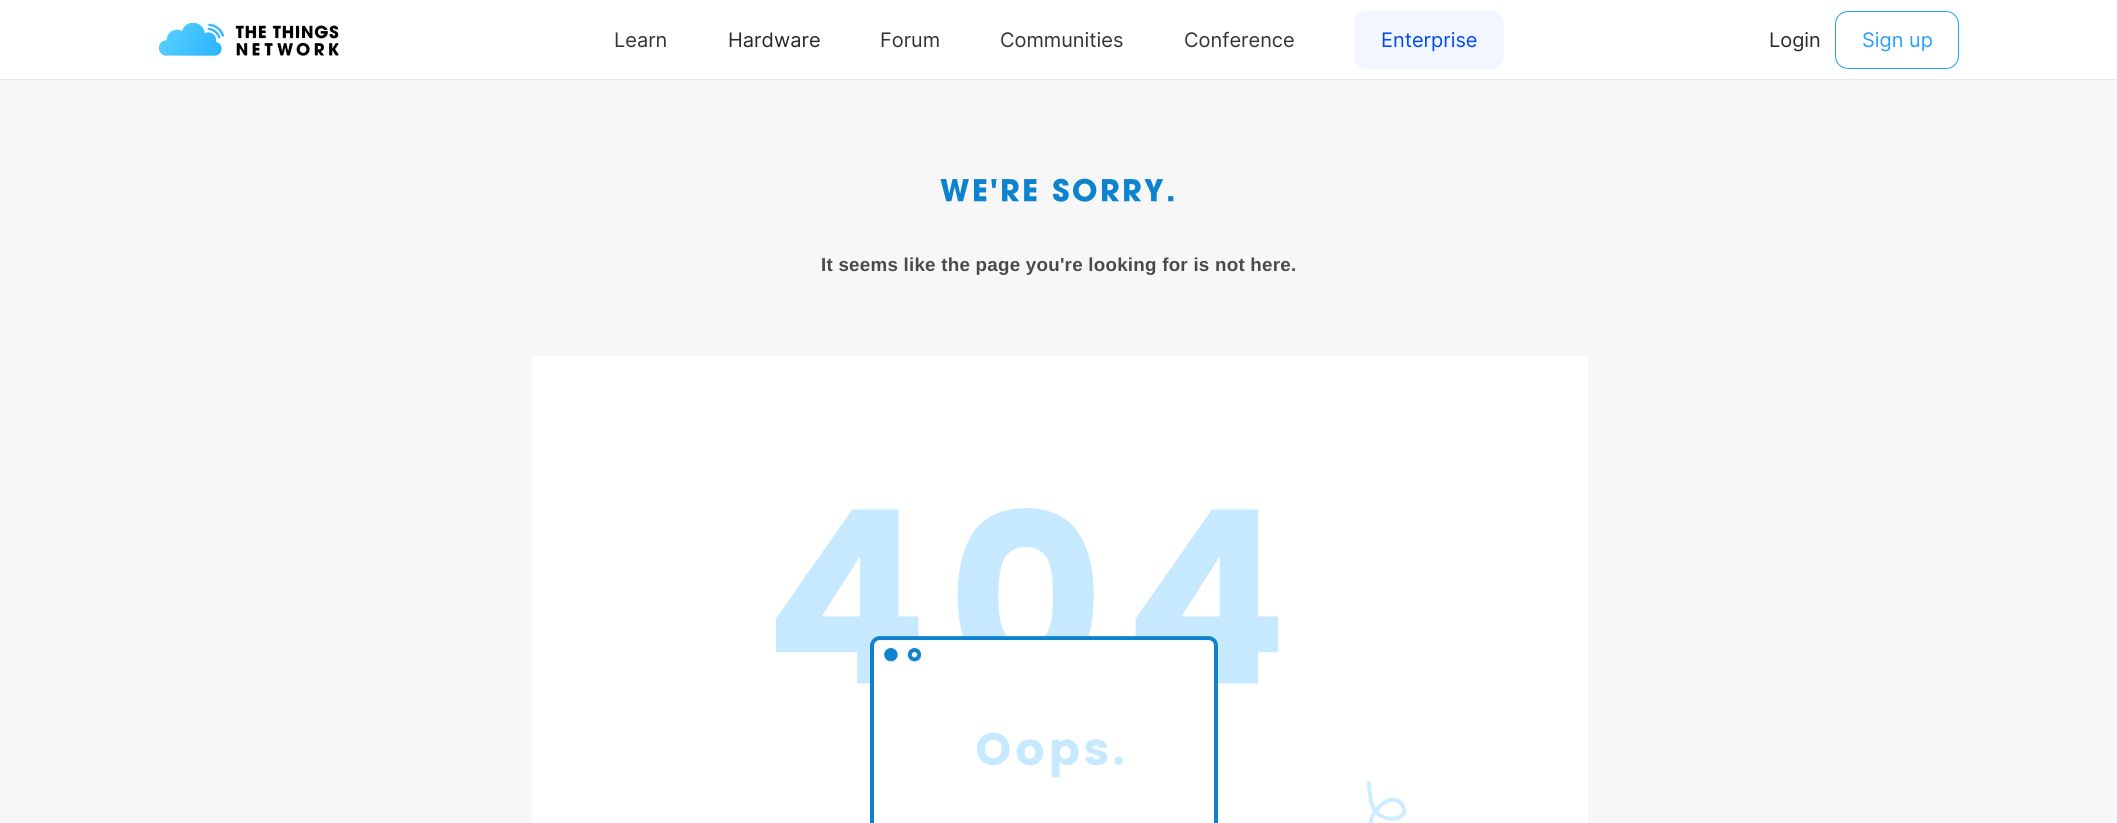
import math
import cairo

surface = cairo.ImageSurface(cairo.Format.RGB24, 2117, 823)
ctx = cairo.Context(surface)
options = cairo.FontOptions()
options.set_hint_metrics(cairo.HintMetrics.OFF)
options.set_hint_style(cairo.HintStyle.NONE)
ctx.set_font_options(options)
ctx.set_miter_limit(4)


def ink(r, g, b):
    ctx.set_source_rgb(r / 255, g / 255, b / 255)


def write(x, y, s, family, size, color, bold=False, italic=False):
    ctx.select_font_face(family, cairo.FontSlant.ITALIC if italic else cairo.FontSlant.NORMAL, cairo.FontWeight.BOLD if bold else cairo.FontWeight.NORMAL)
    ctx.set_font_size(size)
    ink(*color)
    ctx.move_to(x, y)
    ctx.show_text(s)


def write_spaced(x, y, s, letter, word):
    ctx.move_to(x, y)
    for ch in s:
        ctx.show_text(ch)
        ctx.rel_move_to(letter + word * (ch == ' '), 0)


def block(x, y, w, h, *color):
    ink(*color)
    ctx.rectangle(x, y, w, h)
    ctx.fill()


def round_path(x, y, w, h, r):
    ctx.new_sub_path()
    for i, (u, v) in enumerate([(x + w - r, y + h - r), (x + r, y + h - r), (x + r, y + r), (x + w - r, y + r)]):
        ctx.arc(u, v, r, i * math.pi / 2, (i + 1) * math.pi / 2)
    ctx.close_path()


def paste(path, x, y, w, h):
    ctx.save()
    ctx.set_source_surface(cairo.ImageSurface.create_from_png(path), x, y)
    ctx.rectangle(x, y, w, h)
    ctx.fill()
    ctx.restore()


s1 = dict(family="Inter", size=20, color=(51, 51, 51))
s2 = dict(family="Inter", size=20, color=(41, 41, 43))
s3 = dict(family="Inter", size=20, color=(0, 71, 255))
s4 = dict(family="Inter", size=20, color=(38, 160, 255))

ink(247, 247, 247)
ctx.paint()
block(0, 0, 2117, 79, 255, 255, 255)
block(0, 79, 2117, 1, 232, 231, 236)
paste("pic1.png", 159, 22, 180, 34)
write(614, 47, "Learn", **s1)
write(728, 47, "Hardware", **s2)
write(880, 47, "Forum", **s1)
write(1000, 47, "Communities", **s1)
write(1184, 47, "Conference", **s1)
ink(242, 246, 255)
round_path(1354.5, 11.5, 149, 57, 12.5)
ctx.fill_preserve()
ctx.set_line_width(1)
ctx.stroke()
write(1381, 47, "Enterprise", **s3)
write(1769, 47, "Login", **s2)
round_path(1835.5, 11.5, 123, 57, 12.5)
ink(38, 160, 255)
ctx.stroke()
write(1862, 47, "Sign up", **s4)
paste("pic2.png", 940, 178, 234, 24)
ctx.select_font_face("Liberation Sans", cairo.FontSlant.NORMAL, cairo.FontWeight.BOLD)
ctx.set_font_size(18.75)
ink(74, 74, 74)
write_spaced(821, 271, "It seems like the page you're looking for is not here.", 0.25, 0)
paste("pic3.png", 530, 355, 1058, 468)
surface.write_to_png("screenshot.png")
